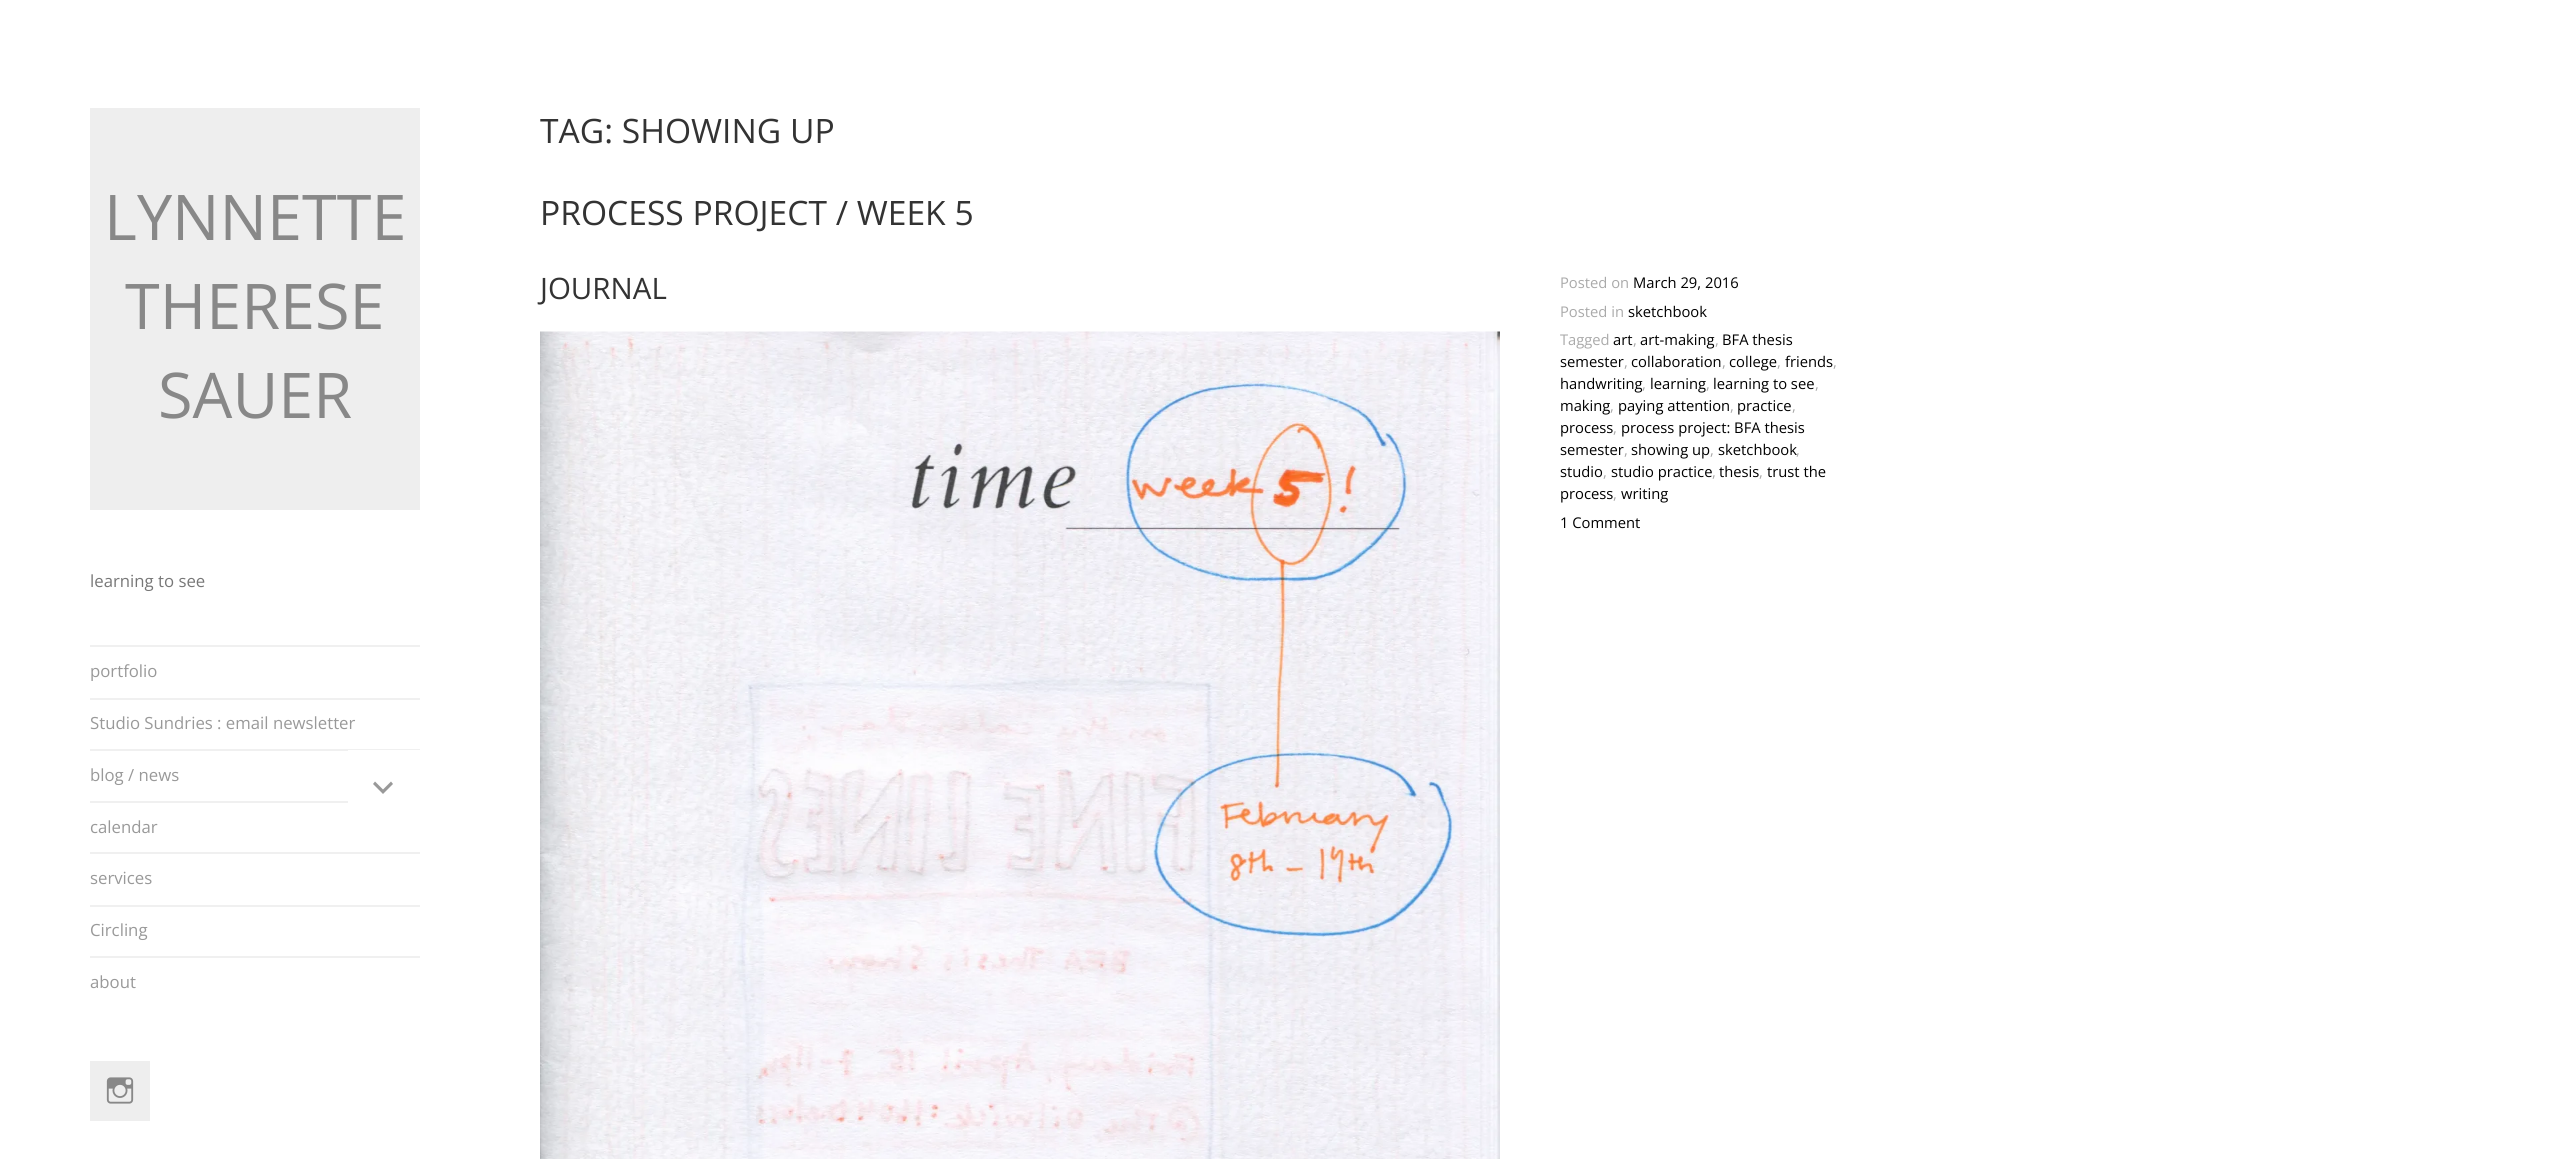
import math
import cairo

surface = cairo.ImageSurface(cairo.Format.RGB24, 2565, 1159)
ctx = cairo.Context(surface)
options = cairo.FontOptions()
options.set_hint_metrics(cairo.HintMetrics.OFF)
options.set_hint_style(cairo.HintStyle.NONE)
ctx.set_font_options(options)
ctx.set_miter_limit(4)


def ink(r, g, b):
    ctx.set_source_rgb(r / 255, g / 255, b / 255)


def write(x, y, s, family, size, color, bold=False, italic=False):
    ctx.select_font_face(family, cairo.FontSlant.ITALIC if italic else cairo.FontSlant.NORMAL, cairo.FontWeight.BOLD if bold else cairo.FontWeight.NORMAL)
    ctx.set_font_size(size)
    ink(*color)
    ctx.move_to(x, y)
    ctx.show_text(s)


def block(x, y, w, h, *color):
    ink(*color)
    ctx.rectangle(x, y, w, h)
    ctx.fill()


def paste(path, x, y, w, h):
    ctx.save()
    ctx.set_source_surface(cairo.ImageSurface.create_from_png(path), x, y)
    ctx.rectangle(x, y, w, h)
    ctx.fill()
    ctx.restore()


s1 = dict(family="Open Sans", size=63, color=(136, 136, 136))
s2 = dict(family="Open Sans", size=16.75, color=(119, 119, 119))
s3 = dict(family="Open Sans", size=16.75, color=(153, 153, 153))
s4 = dict(family="Open Sans", size=33.6, color=(51, 51, 51))
s5 = dict(family="Open Sans", size=29.5, color=(51, 51, 51))
s6 = dict(family="Open Sans", size=14.75, color=(170, 170, 170))
s7 = dict(family="Open Sans", size=14.75, color=(0, 0, 0))

ink(255, 255, 255)
ctx.paint()
block(90, 108, 330, 402, 238, 238, 238)
write(104, 240, "LYNNETTE", **s1)
write(125, 329, "THERESE", **s1)
write(158, 418, "SAUER", **s1)
write(90, 587, "learning to see", **s2)
block(90, 645, 330, 2, 240, 240, 240)
write(90, 677, "portfolio", **s3)
block(90, 698, 330, 2, 240, 240, 240)
write(90, 729, "Studio Sundries : email newsletter", **s3)
block(90, 749, 330, 2, 240, 240, 240)
write(90, 781, "blog / news", **s3)
block(348, 750, 72, 1, 255, 255, 255)
ink(153, 153, 153)
ctx.new_path()
ctx.move_to(391, 781.5)
ctx.line_to(393, 784)
ctx.line_to(383, 794)
ctx.line_to(373, 784)
ctx.line_to(375, 781.5)
ctx.line_to(383, 789.5)
ctx.close_path()
ctx.fill()
block(90, 801, 258, 2, 240, 240, 240)
write(90, 833, "calendar", **s3)
block(90, 852, 330, 2, 240, 240, 240)
write(90, 884, "services", **s3)
block(90, 905, 330, 2, 240, 240, 240)
write(90, 936, "Circling", **s3)
block(90, 956, 330, 2, 240, 240, 240)
write(90, 988, "about", **s3)
block(90, 1061, 60, 60, 238, 238, 238)
paste("pic1.png", 106, 1077, 28, 27)
write(540, 143, "TAG: SHOWING UP", **s4)
write(540, 225, "PROCESS PROJECT / WEEK 5", **s4)
write(540, 299, "JOURNAL", **s5)
paste("pic2.png", 540, 331, 960, 828)
write(1560, 288, "Posted on", **s6)
write(1633, 288, "March 29, 2016", **s7)
write(1560, 317, "Posted in", **s6)
write(1628, 317, "sketchbook", **s7)
write(1560, 345, "Tagged", **s6)
write(1613, 345, "art", **s7)
write(1633, 345, ",", **s6)
write(1640, 345, "art-making", **s7)
write(1715, 345, ",", **s6)
write(1722, 345, "BFA thesis", **s7)
write(1560, 367, "semester", **s7)
write(1624, 367, ",", **s6)
write(1631, 367, "collaboration", **s7)
write(1722, 367, ",", **s6)
write(1729, 367, "college", **s7)
write(1777, 367, ",", **s6)
write(1785, 367, "friends", **s7)
write(1833, 367, ",", **s6)
write(1560, 389, "handwriting", **s7)
write(1642, 389, ",", **s6)
write(1650, 389, "learning", **s7)
write(1706, 389, ",", **s6)
write(1713, 389, "learning to see", **s7)
write(1815, 389, ",", **s6)
write(1560, 411, "making", **s7)
write(1610, 411, ",", **s6)
write(1618, 411, "paying attention", **s7)
write(1730, 411, ",", **s6)
write(1737, 411, "practice", **s7)
write(1792, 411, ",", **s6)
write(1560, 433, "process", **s7)
write(1613, 433, ",", **s6)
write(1621, 433, "process project: BFA thesis", **s7)
write(1560, 455, "semester", **s7)
write(1624, 455, ",", **s6)
write(1631, 455, "showing up", **s7)
write(1710, 455, ",", **s6)
write(1718, 455, "sketchbook", **s7)
write(1796, 455, ",", **s6)
write(1560, 477, "studio", **s7)
write(1603, 477, ",", **s6)
write(1611, 477, "studio practice", **s7)
write(1712, 477, ",", **s6)
write(1719, 477, "thesis", **s7)
write(1759, 477, ",", **s6)
write(1767, 477, "trust the", **s7)
write(1560, 499, "process", **s7)
write(1613, 499, ",", **s6)
write(1621, 499, "writing", **s7)
write(1560, 528, "1 Comment", **s7)
surface.write_to_png("screenshot.png")
